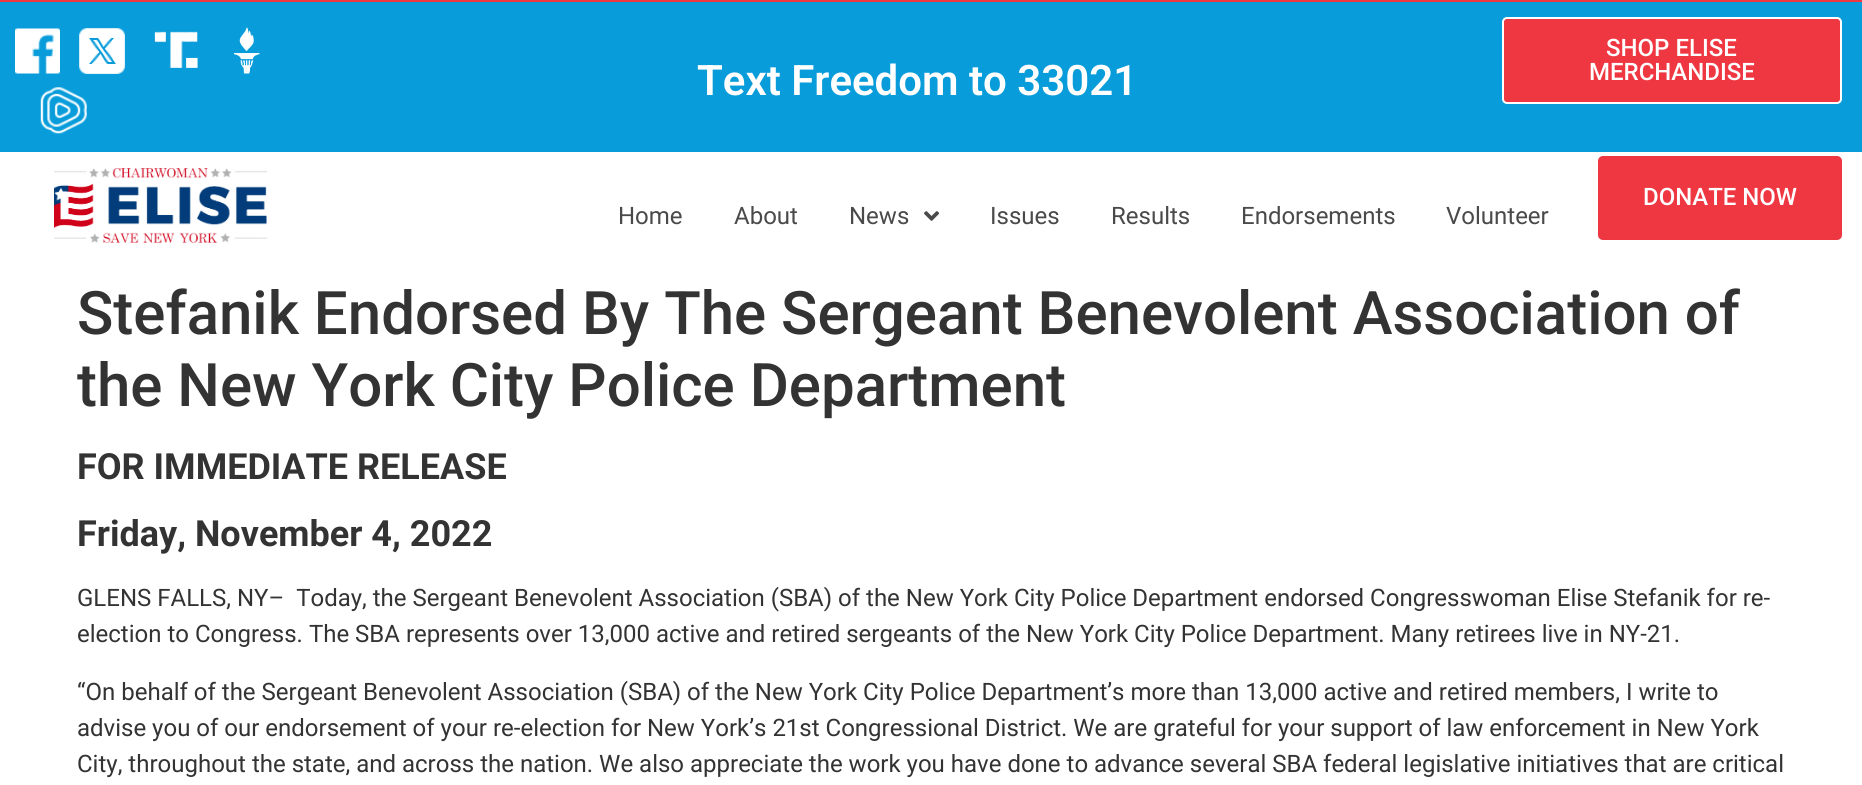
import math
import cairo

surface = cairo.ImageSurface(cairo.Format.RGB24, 1862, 785)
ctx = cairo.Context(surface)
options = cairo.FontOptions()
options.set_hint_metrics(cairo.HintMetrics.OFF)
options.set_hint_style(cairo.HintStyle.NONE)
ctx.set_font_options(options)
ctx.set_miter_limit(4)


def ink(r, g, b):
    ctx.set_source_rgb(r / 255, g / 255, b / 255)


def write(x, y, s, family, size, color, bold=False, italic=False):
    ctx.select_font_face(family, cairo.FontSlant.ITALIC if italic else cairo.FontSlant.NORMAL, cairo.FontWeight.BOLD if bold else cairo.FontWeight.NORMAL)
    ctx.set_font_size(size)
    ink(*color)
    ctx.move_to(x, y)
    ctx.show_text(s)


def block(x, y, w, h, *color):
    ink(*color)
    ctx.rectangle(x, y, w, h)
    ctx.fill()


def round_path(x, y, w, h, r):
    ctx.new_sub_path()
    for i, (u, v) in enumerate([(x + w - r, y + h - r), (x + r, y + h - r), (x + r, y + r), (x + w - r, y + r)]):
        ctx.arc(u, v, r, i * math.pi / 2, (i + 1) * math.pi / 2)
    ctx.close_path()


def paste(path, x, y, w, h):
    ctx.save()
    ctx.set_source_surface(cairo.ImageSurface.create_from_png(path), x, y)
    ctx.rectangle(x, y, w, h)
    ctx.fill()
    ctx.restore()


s1 = dict(family="Roboto SemiBold", size=42, color=(255, 255, 255))
s2 = dict(family="Roboto Medium", size=24, color=(255, 255, 255))
s3 = dict(family="Roboto", size=24, color=(74, 74, 74))
s4 = dict(family="Roboto Medium", size=60, color=(51, 51, 51))
s5 = dict(family="Roboto", size=36, color=(51, 51, 51), bold=True)
s6 = dict(family="Roboto", size=24, color=(51, 51, 51))

ink(255, 255, 255)
ctx.paint()
block(0, 0, 1862, 2, 239, 55, 66)
block(0, 2, 1862, 150, 8, 156, 218)
paste("pic1.png", 15, 28, 45, 46)
paste("pic2.png", 79, 28, 46, 46)
paste("pic3.png", 154, 31, 44, 37)
paste("pic4.png", 234, 27, 26, 47)
paste("pic5.png", 40, 87, 47, 47)
write(697, 95, "Text Freedom to 33021", **s1)
ink(239, 55, 66)
round_path(1503, 18, 338, 85, 4)
ctx.fill_preserve()
ink(255, 255, 255)
ctx.stroke()
write(1606, 56, "SHOP ELISE", **s2)
write(1589, 80, "MERCHANDISE", **s2)
paste("pic6.png", 54, 168, 213, 75)
ink(239, 55, 66)
round_path(1598, 156, 244, 84, 5)
ctx.fill()
write(1643, 205, "DONATE NOW", **s2)
write(618, 224, "Home", **s3)
write(734, 224, "About", **s3)
write(849, 224, "News", **s3)
paste("pic7.png", 924, 211, 15, 10)
write(990, 224, "Issues", **s3)
write(1111, 224, "Results", **s3)
write(1241, 224, "Endorsements", **s3)
write(1446, 224, "Volunteer", **s3)
write(77, 334, "Stefanik Endorsed By The Sergeant Benevolent Association of", **s4)
write(77, 406, "the New York City Police Department", **s4)
write(77, 479, "FOR IMMEDIATE RELEASE", **s5)
write(77, 546, "Friday, November 4, 2022", **s5)
write(77, 606, "GLENS FALLS, NY–  Today, the Sergeant Benevolent Association (SBA) of the New York City Police Department endorsed Congresswoman Elise Stefanik for re-", **s6)
write(77, 642, "election to Congress. The SBA represents over 13,000 active and retired sergeants of the New York City Police Department. Many retirees live in NY-21.", **s6)
write(77, 700, "“On behalf of the Sergeant Benevolent Association (SBA) of the New York City Police Department’s more than 13,000 active and retired members, I write to", **s6)
write(77, 736, "advise you of our endorsement of your re-election for New York’s 21st Congressional District. We are grateful for your support of law enforcement in New York", **s6)
write(77, 772, "City, throughout the state, and across the nation. We also appreciate the work you have done to advance several SBA federal legislative initiatives that are critical", **s6)
surface.write_to_png("screenshot.png")
